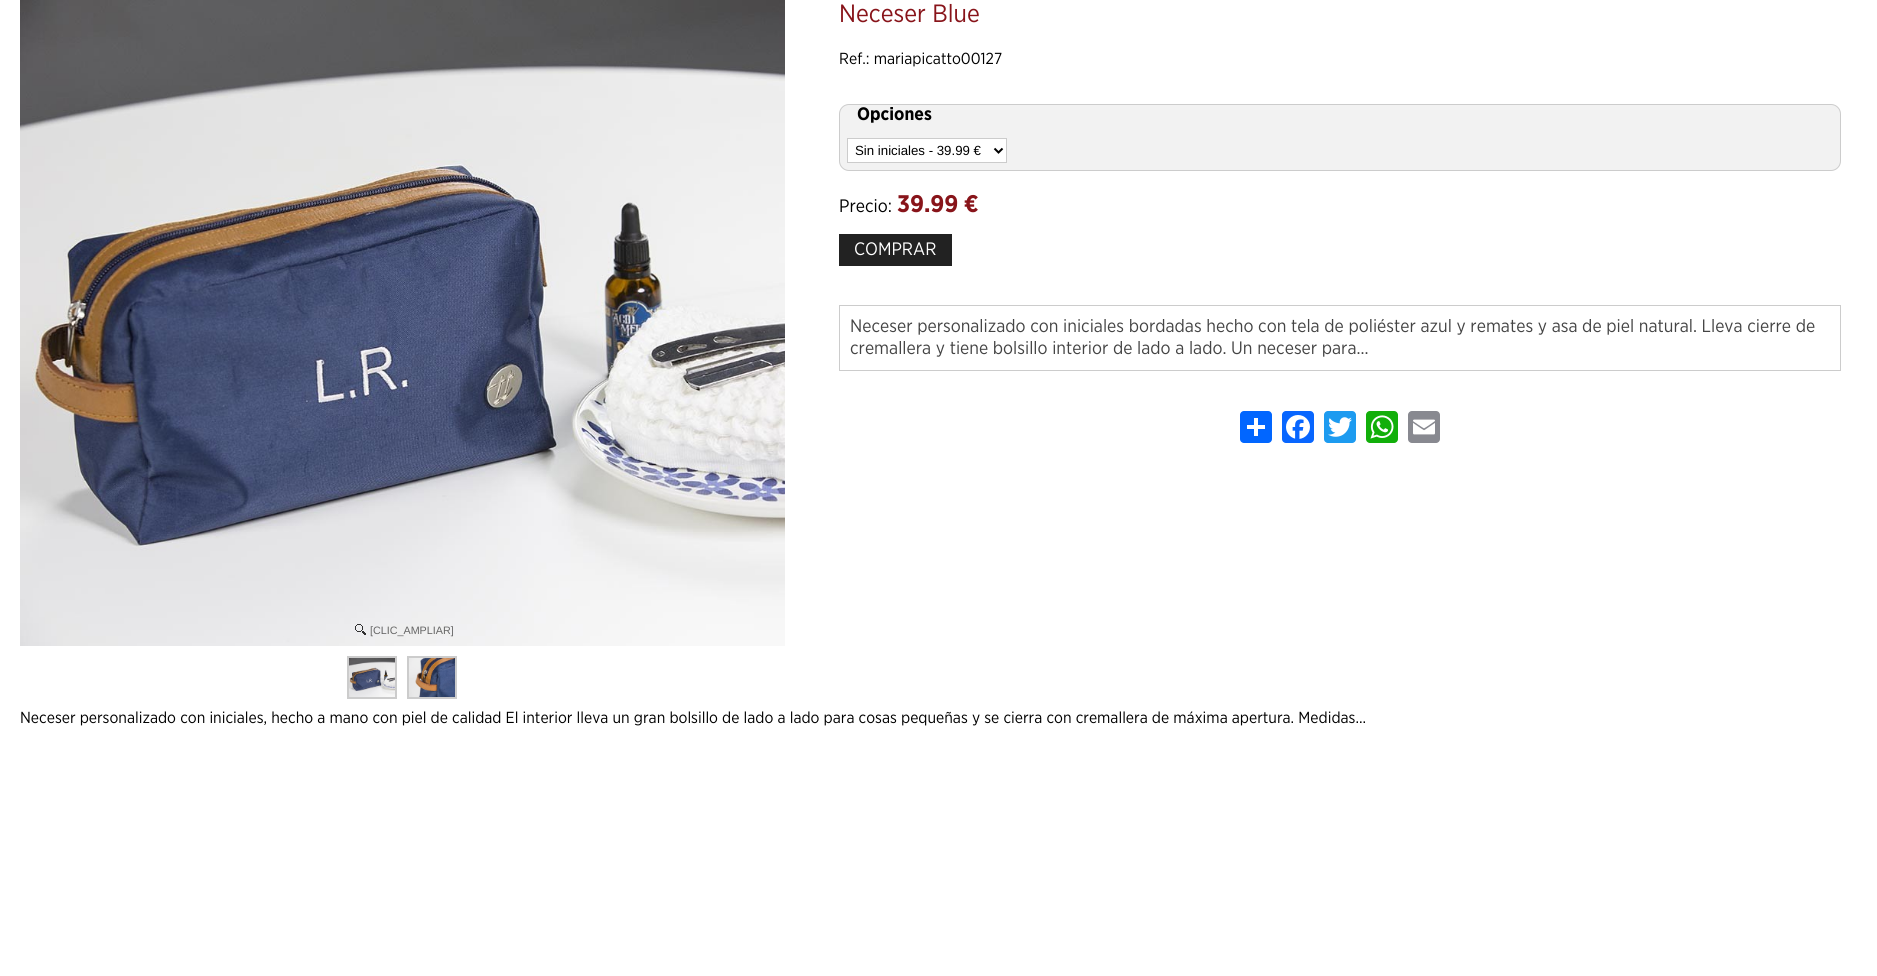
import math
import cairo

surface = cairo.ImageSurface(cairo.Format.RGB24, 1877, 976)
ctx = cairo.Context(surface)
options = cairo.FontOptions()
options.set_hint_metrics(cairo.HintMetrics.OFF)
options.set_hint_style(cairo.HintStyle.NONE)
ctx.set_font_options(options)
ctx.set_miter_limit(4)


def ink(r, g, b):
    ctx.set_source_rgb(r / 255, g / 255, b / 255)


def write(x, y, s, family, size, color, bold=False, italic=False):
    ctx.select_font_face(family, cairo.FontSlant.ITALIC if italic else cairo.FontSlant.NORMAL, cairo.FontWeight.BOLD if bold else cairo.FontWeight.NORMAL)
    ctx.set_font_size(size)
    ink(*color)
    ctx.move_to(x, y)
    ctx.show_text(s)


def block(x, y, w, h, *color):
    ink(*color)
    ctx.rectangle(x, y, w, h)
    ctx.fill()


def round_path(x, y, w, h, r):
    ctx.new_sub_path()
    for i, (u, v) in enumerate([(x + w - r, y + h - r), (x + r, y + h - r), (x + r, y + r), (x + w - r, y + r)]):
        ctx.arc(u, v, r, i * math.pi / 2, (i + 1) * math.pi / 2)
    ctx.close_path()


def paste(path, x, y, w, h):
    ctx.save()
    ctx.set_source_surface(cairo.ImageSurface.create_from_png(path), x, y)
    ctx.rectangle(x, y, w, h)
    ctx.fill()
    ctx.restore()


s1 = dict(family="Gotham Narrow", size=25, color=(136, 20, 26))
s2 = dict(family="Gotham Narrow", size=16, color=(0, 0, 0))
s3 = dict(family="Gotham Narrow", size=18, color=(0, 0, 0), bold=True)
s4 = dict(family="Liberation Sans", size=13.25, color=(0, 0, 0))
s5 = dict(family="Gotham Narrow", size=18, color=(0, 0, 0))
s6 = dict(family="Gotham Narrow", size=24, color=(136, 20, 26), bold=True)
s7 = dict(family="Gotham Narrow", size=18, color=(255, 255, 255))
s8 = dict(family="Gotham Narrow", size=18, color=(68, 68, 68))
s9 = dict(family="Liberation Sans", size=10.75, color=(102, 102, 102))

ink(255, 255, 255)
ctx.paint()
write(839, 22, "Neceser Blue", **s1)
write(839, 64, "Ref.: mariapicatto00127", **s2)
ink(242, 242, 242)
round_path(839.5, 104.5, 1001, 66, 9.5)
ctx.fill_preserve()
ink(204, 204, 204)
ctx.set_line_width(1)
ctx.stroke()
write(857, 120, "Opciones", **s3)
ink(255, 255, 255)
ctx.rectangle(847.5, 138.5, 159, 24)
ctx.fill_preserve()
ink(204, 204, 204)
ctx.stroke()
ctx.new_path()
ctx.move_to(994.5, 148.5)
ctx.line_to(998.5, 152.5)
ctx.line_to(1002.5, 148.5)
ink(0, 0, 0)
ctx.set_line_width(2)
ctx.stroke()
write(855, 155, "Sin iniciales - 39.99 €", **s4)
write(839, 212, "Precio:", **s5)
write(897, 212, "39.99 €", **s6)
block(839, 234, 113, 32, 34, 34, 34)
write(854, 255, "COMPRAR", **s7)
ctx.rectangle(839.5, 305.5, 1001, 65)
ink(204, 204, 204)
ctx.set_line_width(1)
ctx.stroke()
write(850, 332, "Neceser personalizado con iniciales bordadas hecho con tela de poliéster azul y remates y asa de piel natural. Lleva cierre de", **s8)
write(850, 354, "cremallera y tiene bolsillo interior de lado a lado. Un neceser para...", **s8)
ink(1, 102, 255)
round_path(1240, 411, 32, 32, 4)
ctx.fill()
block(1254, 418, 4, 18, 255, 255, 255)
block(1247, 425, 18, 4, 255, 255, 255)
ink(8, 102, 255)
round_path(1282, 411, 32, 32, 4)
ctx.fill()
paste("pic1.png", 1286, 415, 24, 24)
ink(29, 155, 240)
round_path(1324, 411, 32, 32, 4)
ctx.fill()
paste("pic2.png", 1328, 417, 24, 20)
ink(18, 175, 10)
round_path(1366, 411, 32, 32, 4)
ctx.fill()
paste("pic3.png", 1370, 415, 24, 24)
ink(136, 137, 144)
round_path(1408, 411, 32, 32, 4)
ctx.fill()
paste("pic4.png", 1413, 419, 22, 16)
paste("pic5.png", 20, 0, 765, 646)
paste("pic6.png", 355, 624, 11, 11)
write(370, 634, "[CLIC_AMPLIAR]", **s9)
ctx.rectangle(348, 657, 48, 41)
ink(204, 204, 204)
ctx.set_line_width(2)
ctx.stroke()
paste("pic7.png", 349, 658, 46, 39)
ctx.rectangle(408, 657, 48, 41)
ctx.stroke()
paste("pic8.png", 409, 658, 46, 39)
write(20, 723, "Neceser personalizado con iniciales, hecho a mano con piel de calidad El interior lleva un gran bolsillo de lado a lado para cosas pequeñas y se cierra con cremallera de máxima apertura. Medidas...", **s2)
surface.write_to_png("screenshot.png")
